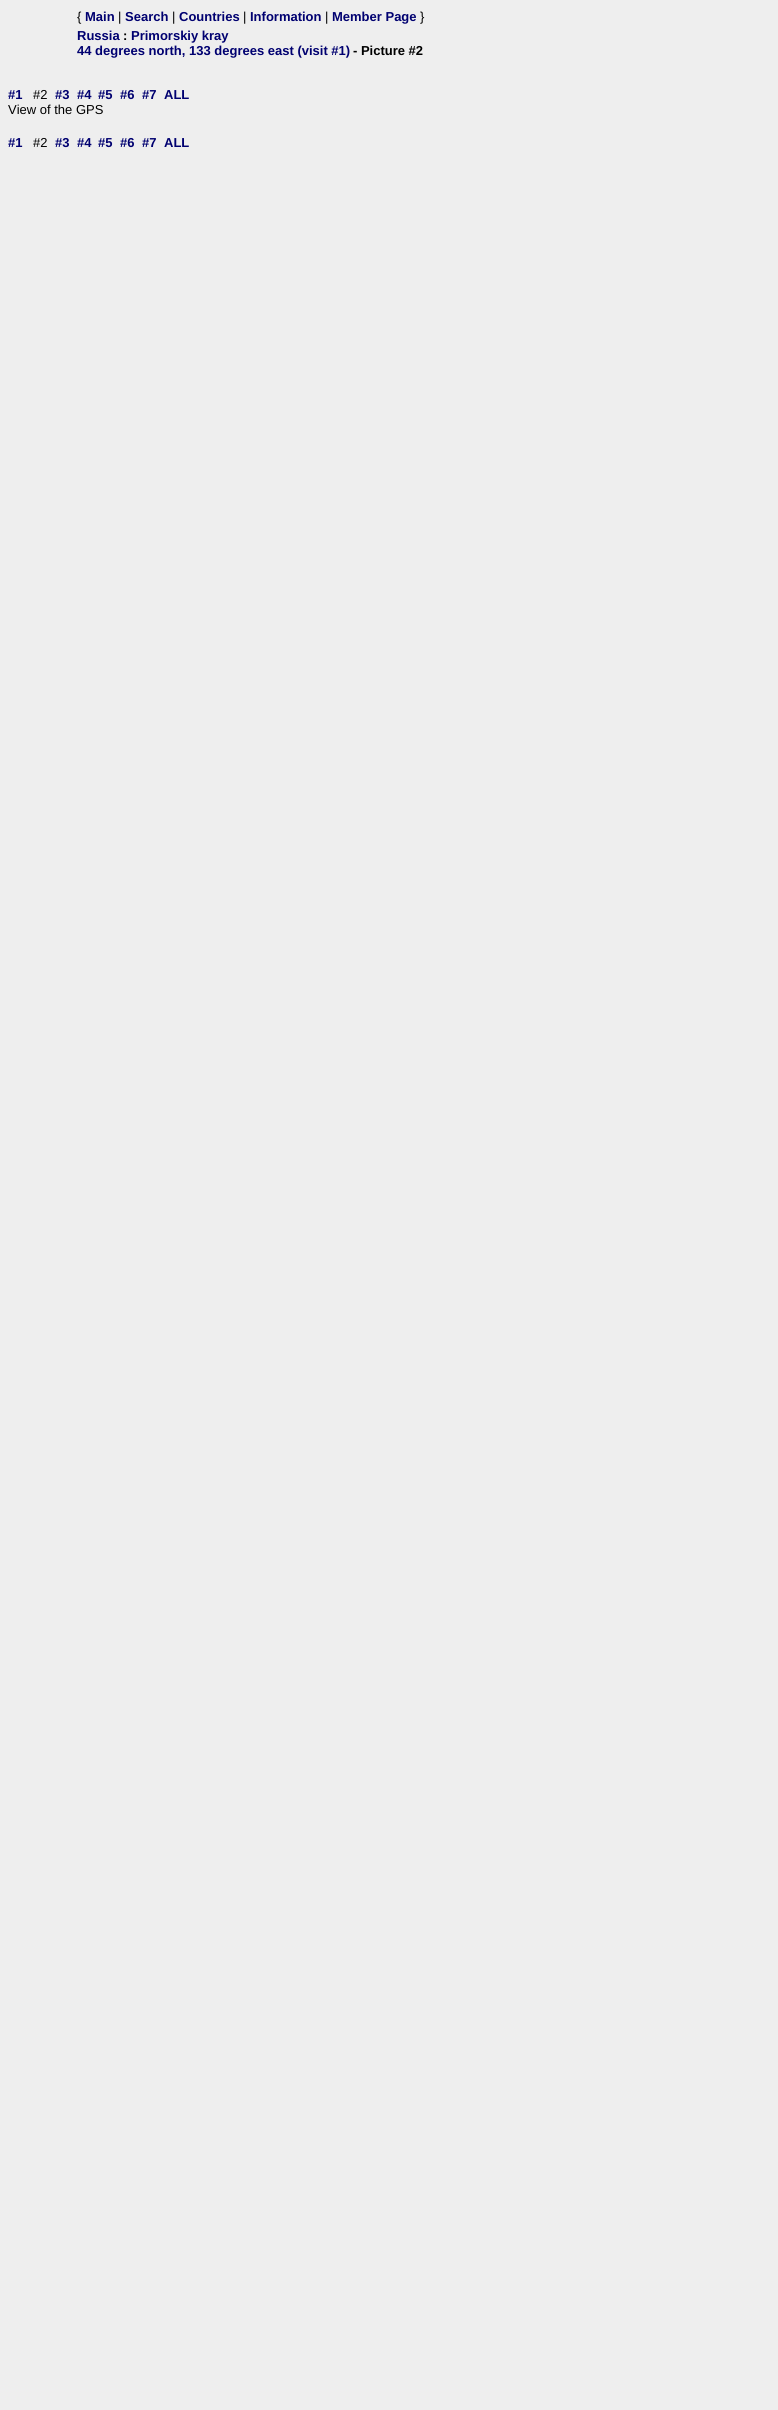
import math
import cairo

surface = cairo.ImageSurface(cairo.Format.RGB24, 778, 2410)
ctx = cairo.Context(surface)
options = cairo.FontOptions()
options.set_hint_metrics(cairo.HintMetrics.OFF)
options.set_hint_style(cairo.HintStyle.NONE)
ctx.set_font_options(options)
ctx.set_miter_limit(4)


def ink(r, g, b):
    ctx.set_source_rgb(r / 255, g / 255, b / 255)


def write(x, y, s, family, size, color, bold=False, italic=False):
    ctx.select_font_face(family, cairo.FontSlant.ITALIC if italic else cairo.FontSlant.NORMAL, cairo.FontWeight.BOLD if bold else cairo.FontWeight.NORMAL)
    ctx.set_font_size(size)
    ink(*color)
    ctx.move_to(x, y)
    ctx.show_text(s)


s1 = dict(family="Liberation Sans", size=13, color=(0, 0, 0))
s2 = dict(family="Liberation Sans", size=13, color=(0, 0, 112), bold=True)
s3 = dict(family="Liberation Sans", size=13, color=(0, 0, 0), bold=True)

ink(238, 238, 238)
ctx.paint()
write(77, 21, "{", **s1)
write(85, 21, "Main", **s2)
write(118, 21, "|", **s1)
write(125, 21, "Search", **s2)
write(172, 21, "|", **s1)
write(179, 21, "Countries", **s2)
write(243, 21, "|", **s1)
write(250, 21, "Information", **s2)
write(325, 21, "|", **s1)
write(332, 21, "Member Page", **s2)
write(420, 21, "}", **s1)
write(77, 40, "Russia", **s2)
write(123, 40, ":", **s3)
write(131, 40, "Primorskiy kray", **s2)
write(77, 55, "44 degrees north, 133 degrees east (visit #1)", **s2)
write(353, 55, "- Picture #2", **s3)
write(8, 99, "#1", **s2)
write(33, 99, "#2", **s1)
write(55, 99, "#3", **s2)
write(77, 99, "#4", **s2)
write(98, 99, "#5", **s2)
write(120, 99, "#6", **s2)
write(142, 99, "#7", **s2)
write(164, 99, "ALL", **s2)
write(8, 114, "View of the GPS", **s1)
write(8, 147, "#1", **s2)
write(33, 147, "#2", **s1)
write(55, 147, "#3", **s2)
write(77, 147, "#4", **s2)
write(98, 147, "#5", **s2)
write(120, 147, "#6", **s2)
write(142, 147, "#7", **s2)
write(164, 147, "ALL", **s2)
surface.write_to_png("screenshot.png")
